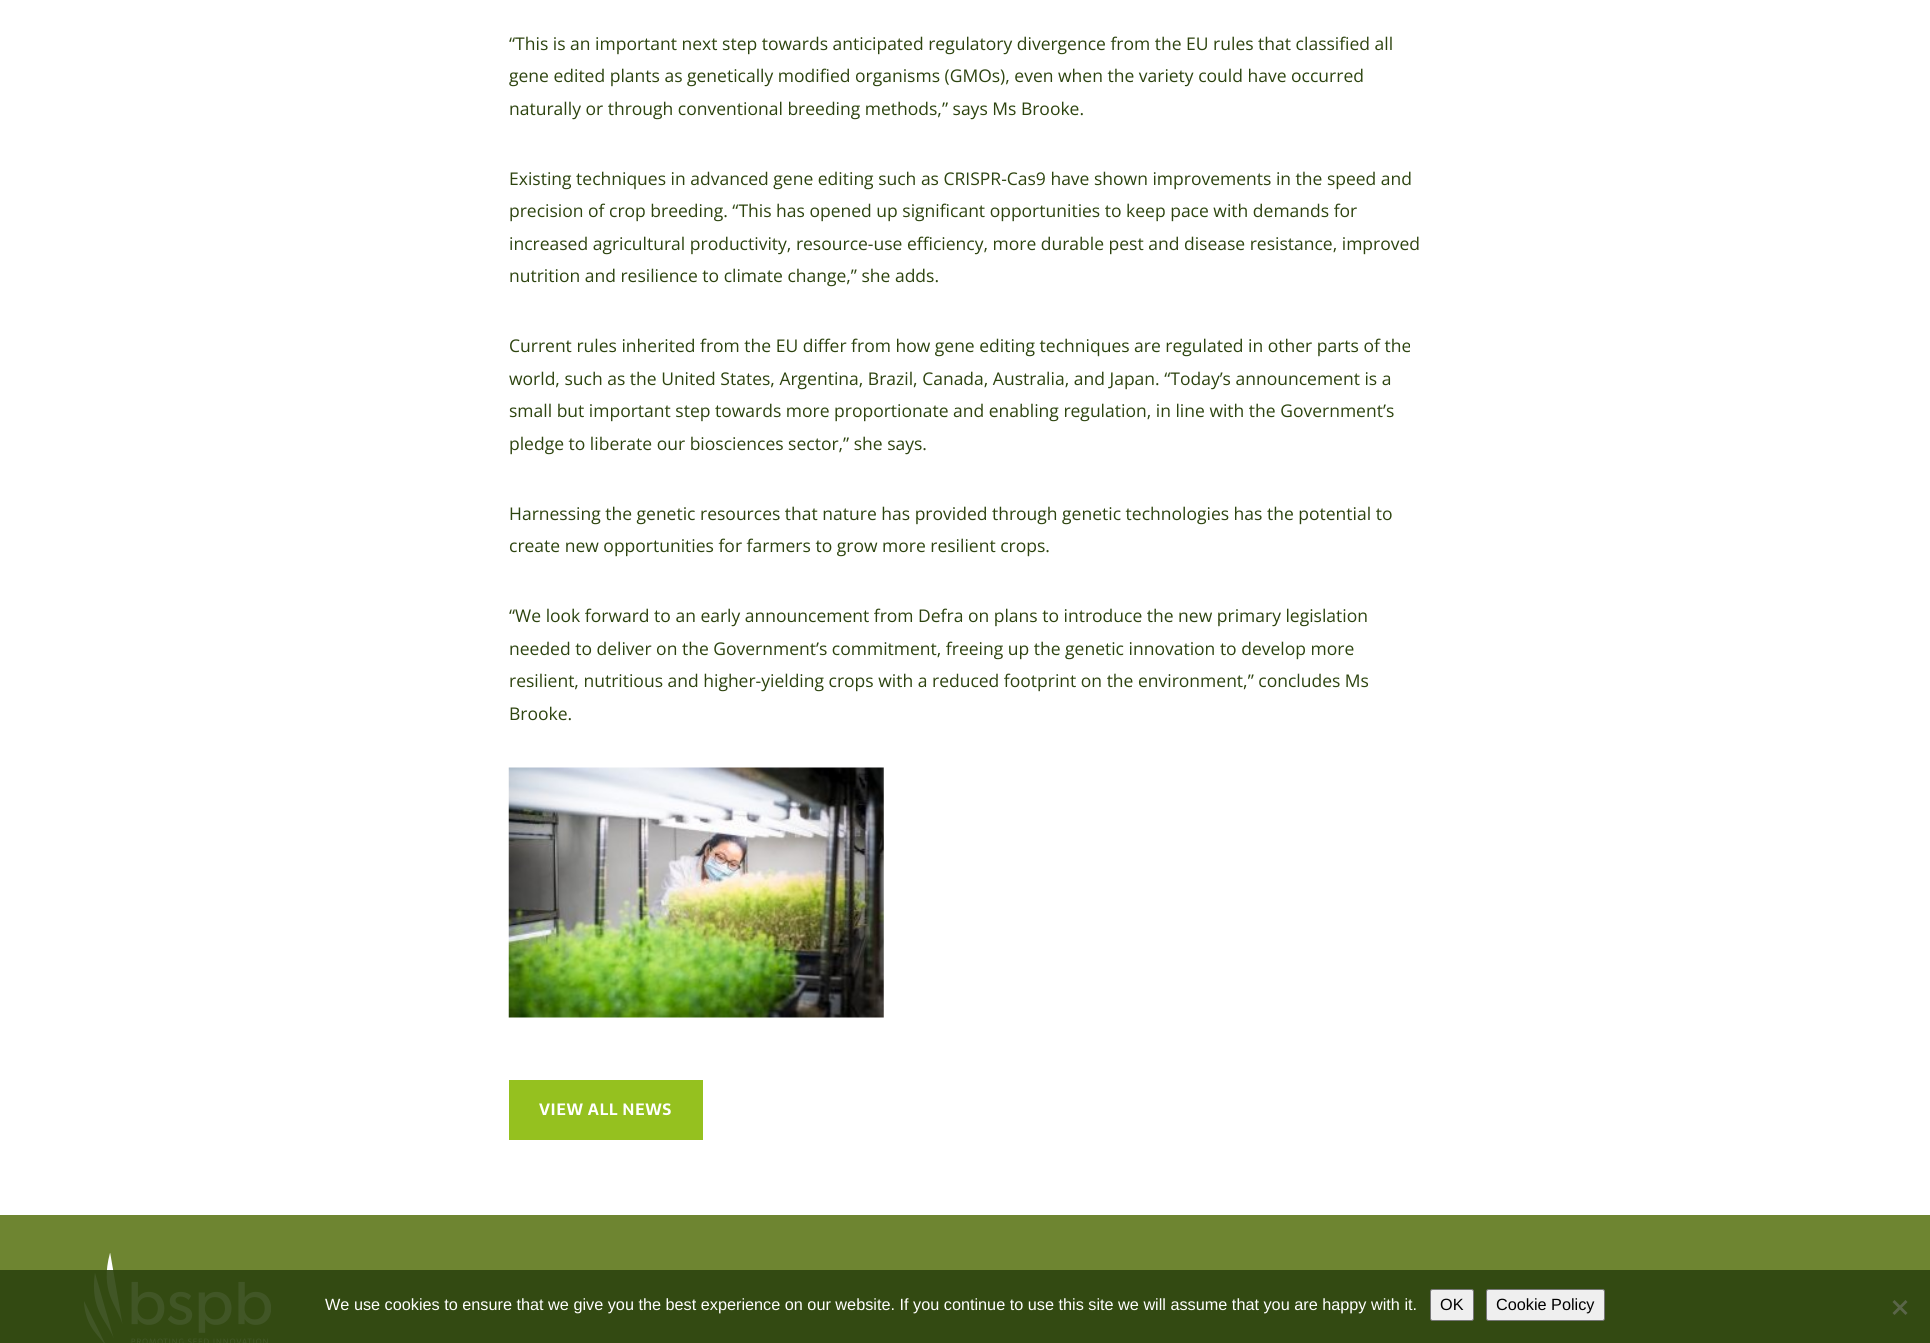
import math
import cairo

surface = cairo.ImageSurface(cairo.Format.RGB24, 1930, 1343)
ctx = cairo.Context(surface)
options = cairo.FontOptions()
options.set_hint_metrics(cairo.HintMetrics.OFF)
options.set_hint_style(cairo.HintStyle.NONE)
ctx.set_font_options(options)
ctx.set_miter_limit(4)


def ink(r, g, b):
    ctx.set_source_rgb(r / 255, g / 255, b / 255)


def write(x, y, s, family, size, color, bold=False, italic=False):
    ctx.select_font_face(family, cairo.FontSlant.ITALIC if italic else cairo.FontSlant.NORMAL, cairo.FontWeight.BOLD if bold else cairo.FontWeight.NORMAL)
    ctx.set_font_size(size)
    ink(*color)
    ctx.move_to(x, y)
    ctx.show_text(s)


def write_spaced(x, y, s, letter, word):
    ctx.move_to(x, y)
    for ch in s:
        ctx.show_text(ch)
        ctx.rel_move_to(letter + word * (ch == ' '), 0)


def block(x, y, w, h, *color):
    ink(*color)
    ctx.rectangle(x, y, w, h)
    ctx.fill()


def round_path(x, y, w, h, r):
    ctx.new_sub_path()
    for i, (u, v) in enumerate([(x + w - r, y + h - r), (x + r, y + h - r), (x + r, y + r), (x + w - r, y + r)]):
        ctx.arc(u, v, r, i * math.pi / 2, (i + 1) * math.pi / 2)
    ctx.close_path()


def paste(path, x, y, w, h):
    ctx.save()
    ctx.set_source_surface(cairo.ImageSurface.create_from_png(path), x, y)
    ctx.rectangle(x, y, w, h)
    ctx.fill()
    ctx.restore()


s1 = dict(family="Open Sans", size=17.5, color=(45, 68, 15))
s2 = dict(family="Liberation Sans", size=16.25, color=(255, 255, 255))
s3 = dict(family="Liberation Sans", size=16.25, color=(0, 0, 0))

ink(255, 255, 255)
ctx.paint()
write(509, 50, "“This is an important next step towards anticipated regulatory divergence from the EU rules that classified all", **s1)
write(509, 82, "gene edited plants as genetically modified organisms (GMOs), even when the variety could have occurred", **s1)
write(509, 115, "naturally or through conventional breeding methods,” says Ms Brooke.", **s1)
write(509, 185, "Existing techniques in advanced gene editing such as CRISPR-Cas9 have shown improvements in the speed and", **s1)
write(509, 217, "precision of crop breeding. “This has opened up significant opportunities to keep pace with demands for", **s1)
write(509, 250, "increased agricultural productivity, resource-use efficiency, more durable pest and disease resistance, improved", **s1)
write(509, 282, "nutrition and resilience to climate change,” she adds.", **s1)
write(509, 352, "Current rules inherited from the EU differ from how gene editing techniques are regulated in other parts of the", **s1)
write(509, 385, "world, such as the United States, Argentina, Brazil, Canada, Australia, and Japan. “Today’s announcement is a", **s1)
write(509, 417, "small but important step towards more proportionate and enabling regulation, in line with the Government’s", **s1)
write(509, 450, "pledge to liberate our biosciences sector,” she says.", **s1)
write(509, 520, "Harnessing the genetic resources that nature has provided through genetic technologies has the potential to", **s1)
write(509, 552, "create new opportunities for farmers to grow more resilient crops.", **s1)
write(509, 622, "“We look forward to an early announcement from Defra on plans to introduce the new primary legislation", **s1)
write(509, 655, "needed to deliver on the Government’s commitment, freeing up the genetic innovation to develop more", **s1)
write(509, 687, "resilient, nutritious and higher-yielding crops with a reduced footprint on the environment,” concludes Ms", **s1)
write(509, 720, "Brooke.", **s1)
paste("pic1.png", 508, 767, 376, 251)
block(509, 1080, 194, 60, 149, 193, 31)
ctx.select_font_face("Sarala", cairo.FontSlant.NORMAL, cairo.FontWeight.BOLD)
ctx.set_font_size(16.25)
ink(255, 255, 255)
write_spaced(539, 1115, "VIEW ALL NEWS", 0.6, 0)
block(0, 1215, 1930, 128, 110, 133, 49)
paste("pic2.png", 84, 1253, 187, 90)
ctx.set_source_rgba(0.176, 0.267, 0.059, 0.9)
ctx.rectangle(0, 1270, 1930, 73)
ctx.fill()
write(325, 1310, "We use cookies to ensure that we give you the best experience on our website. If you continue to use this site we will assume that you are happy with it.", **s2)
ink(239, 239, 239)
round_path(1430.5, 1289.5, 43, 31, 2)
ctx.fill_preserve()
ink(118, 118, 118)
ctx.set_line_width(1)
ctx.stroke()
write(1440, 1310, "OK", **s3)
ink(239, 239, 239)
round_path(1486.5, 1289.5, 118, 31, 2)
ctx.fill_preserve()
ink(118, 118, 118)
ctx.stroke()
write(1496, 1310, "Cookie Policy", **s3)
ink(90, 101, 73)
ctx.new_path()
ctx.move_to(1905.5, 1300)
ctx.line_to(1907.5, 1302)
ctx.line_to(1894.5, 1315)
ctx.line_to(1892.5, 1313)
ctx.close_path()
ctx.fill()
ctx.new_path()
ctx.move_to(1892.5, 1302)
ctx.line_to(1894.5, 1300)
ctx.line_to(1907.5, 1313)
ctx.line_to(1905.5, 1315)
ctx.close_path()
ctx.fill()
surface.write_to_png("screenshot.png")
